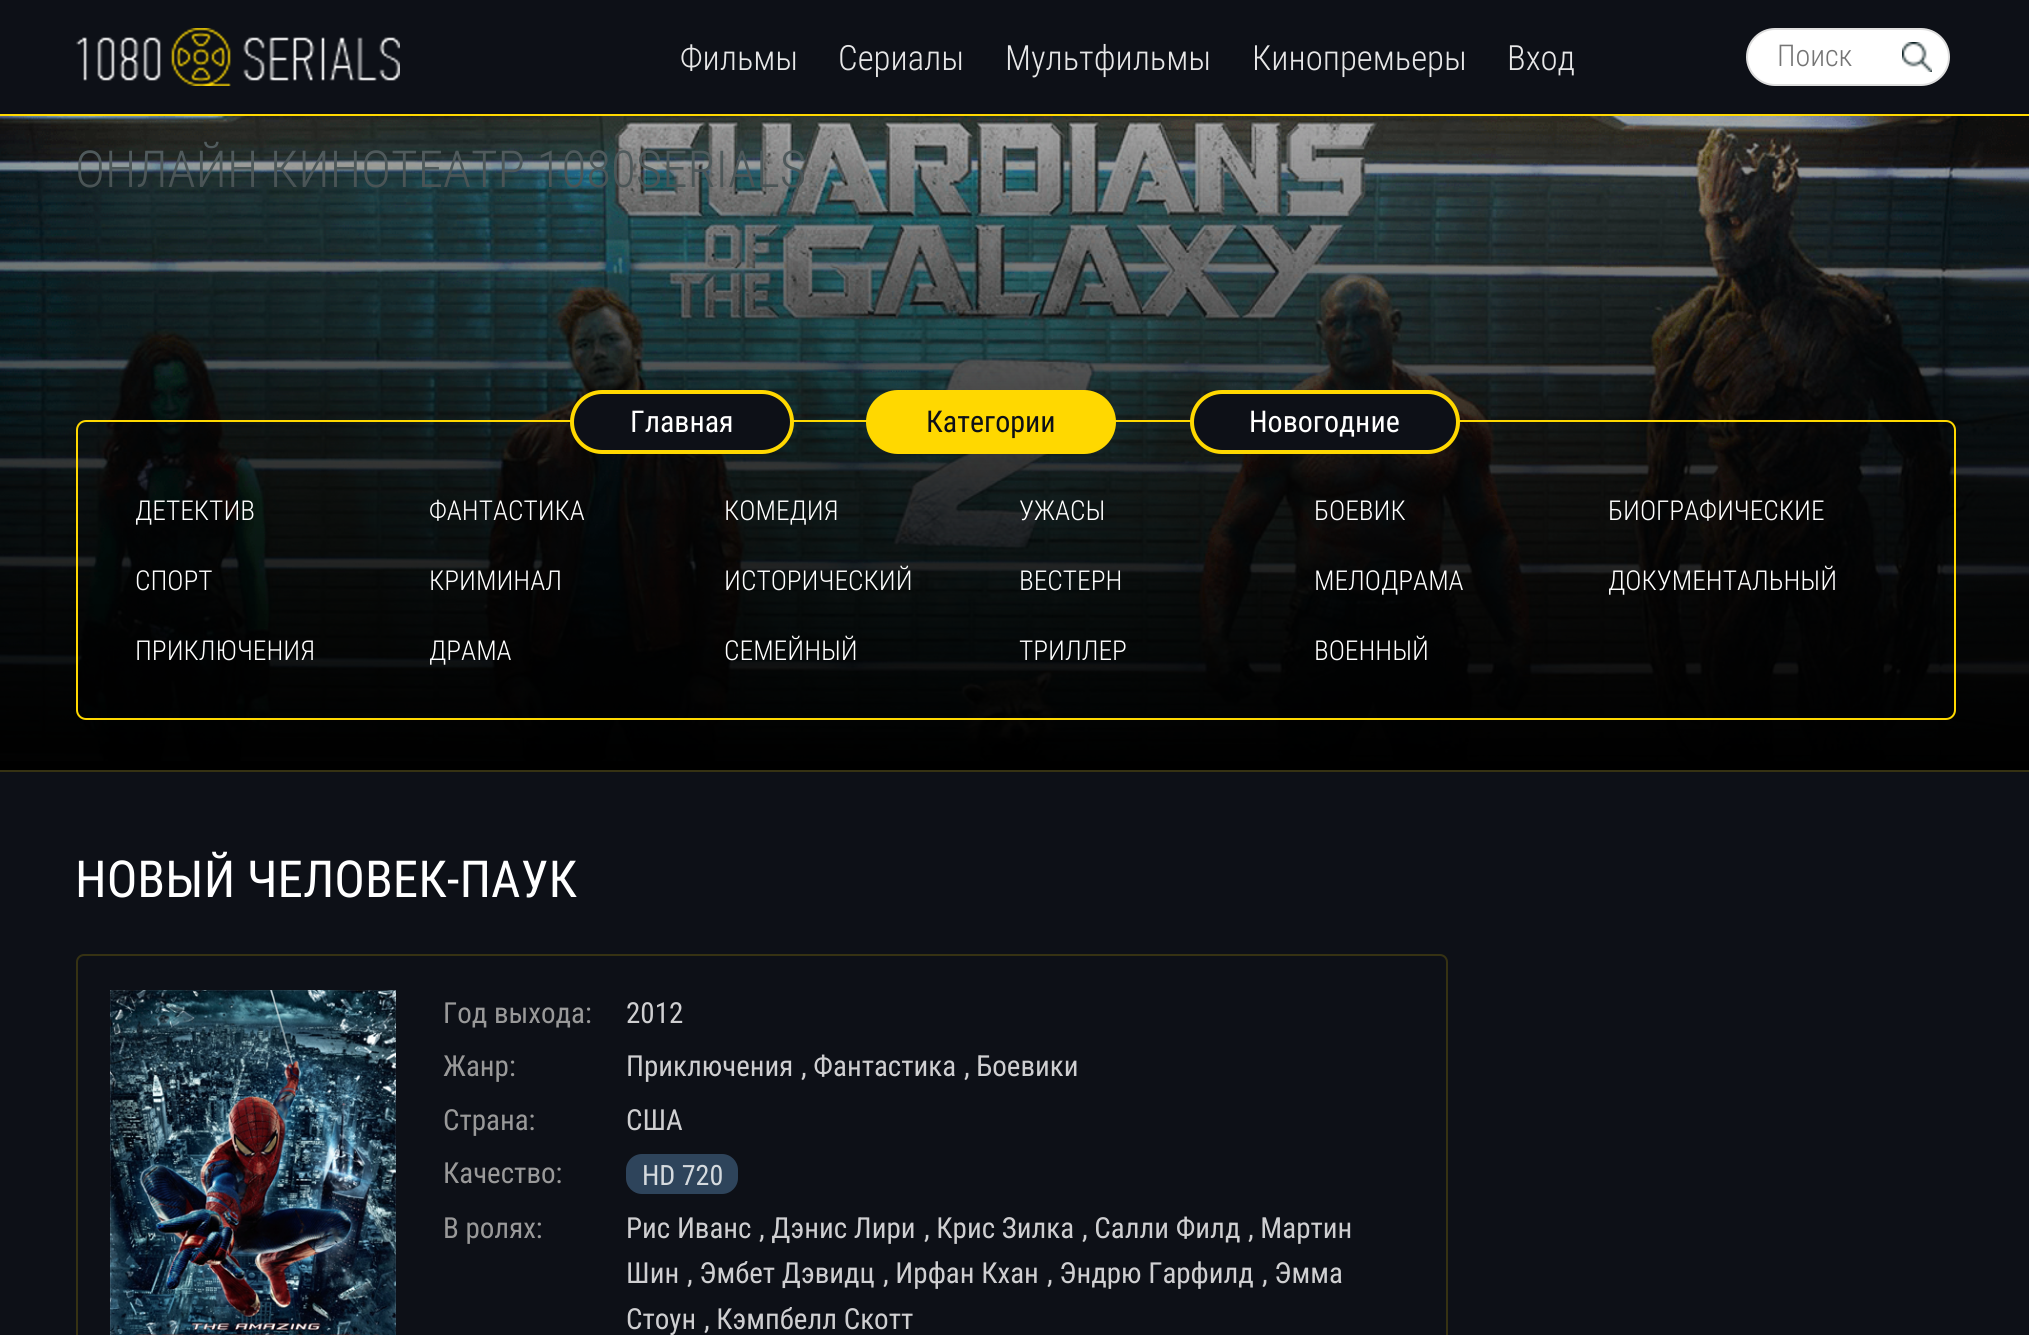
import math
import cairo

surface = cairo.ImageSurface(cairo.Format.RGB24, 2029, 1335)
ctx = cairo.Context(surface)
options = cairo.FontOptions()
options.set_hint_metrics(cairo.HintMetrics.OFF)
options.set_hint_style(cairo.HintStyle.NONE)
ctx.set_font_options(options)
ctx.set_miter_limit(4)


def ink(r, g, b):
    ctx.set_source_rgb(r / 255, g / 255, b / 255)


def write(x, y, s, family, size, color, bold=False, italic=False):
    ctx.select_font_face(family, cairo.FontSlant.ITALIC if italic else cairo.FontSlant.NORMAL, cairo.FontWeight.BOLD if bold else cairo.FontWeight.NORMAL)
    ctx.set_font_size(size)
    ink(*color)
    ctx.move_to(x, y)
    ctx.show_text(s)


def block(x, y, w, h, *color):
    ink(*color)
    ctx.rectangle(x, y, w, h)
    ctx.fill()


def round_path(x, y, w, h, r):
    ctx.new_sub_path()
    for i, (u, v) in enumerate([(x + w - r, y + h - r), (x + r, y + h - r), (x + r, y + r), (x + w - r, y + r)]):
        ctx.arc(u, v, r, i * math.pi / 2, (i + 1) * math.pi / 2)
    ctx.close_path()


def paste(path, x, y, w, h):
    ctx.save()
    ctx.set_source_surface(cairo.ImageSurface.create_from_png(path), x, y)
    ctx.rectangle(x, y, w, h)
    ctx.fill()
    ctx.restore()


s1 = dict(family="Roboto Condensed Light", size=34.75, color=(231, 231, 232))
s2 = dict(family="Roboto Condensed Light", size=30, color=(117, 117, 117))
s3 = dict(family="Roboto Condensed Light", size=51, color=(127, 144, 147))
s4 = dict(family="Roboto Condensed", size=30, color=(255, 255, 255))
s5 = dict(family="Roboto Condensed", size=30, color=(13, 16, 23))
s6 = dict(family="Roboto Condensed Light", size=27.4, color=(255, 255, 255))
s7 = dict(family="Roboto Condensed", size=51, color=(255, 255, 255))
s8 = dict(family="Roboto Condensed", size=29, color=(153, 153, 153))
s9 = dict(family="Roboto Condensed", size=29, color=(207, 207, 209))
s10 = dict(family="Roboto Condensed", size=28, color=(213, 218, 222))

ink(13, 16, 23)
ctx.paint()
block(0, 114, 2029, 2, 255, 216, 0)
paste("pic1.png", 76, 28, 324, 58)
write(680, 70, "Фильмы", **s1)
write(838, 70, "Сериалы", **s1)
write(1005, 70, "Мультфильмы", **s1)
write(1252, 70, "Кинопремьеры", **s1)
write(1507, 70, "Вход", **s1)
ink(255, 255, 255)
round_path(1747, 29, 202, 56, 28)
ctx.fill_preserve()
ink(222, 222, 222)
ctx.stroke()
write(1777, 66, "Поиск", **s2)
paste("pic2.png", 1902, 42, 30, 30)
paste("pic3.png", 0, 116, 2029, 645)
block(0, 770, 2029, 2, 54, 50, 19)
write(75, 187, "ОНЛАЙН КИНОТЕАТР 1080SERIALS", **s3)
gradient = cairo.LinearGradient(1015, 116, 1015, 770)
gradient.add_color_stop_rgba(0, 0, 0, 0, 0.32)
gradient.add_color_stop_rgba(0.5, 0, 0, 0, 0.78)
gradient.add_color_stop_rgba(1, 0, 0, 0, 1)
ctx.set_source(gradient)
ctx.rectangle(0, 116, 2029, 654)
ctx.fill()
round_path(77, 421, 1878, 298, 9)
ink(255, 216, 0)
ctx.stroke()
ink(13, 16, 23)
round_path(572, 392, 220, 60, 30)
ctx.fill_preserve()
ink(255, 216, 0)
ctx.set_line_width(4)
ctx.stroke()
write(630, 432, "Главная", **s4)
ink(255, 216, 0)
round_path(868, 392, 246, 60, 30)
ctx.fill_preserve()
ctx.stroke()
write(926, 432, "Категории", **s5)
round_path(1192, 392, 266, 60, 30)
ctx.fill_preserve()
ink(255, 216, 0)
ctx.stroke()
write(1249, 432, "Новогодние", **s4)
write(135, 520, "ДЕТЕКТИВ", **s6)
write(429, 520, "ФАНТАСТИКА", **s6)
write(724, 520, "КОМЕДИЯ", **s6)
write(1019, 520, "УЖАСЫ", **s6)
write(1314, 520, "БОЕВИК", **s6)
write(1608, 520, "БИОГРАФИЧЕСКИЕ", **s6)
write(135, 590, "СПОРТ", **s6)
write(429, 590, "КРИМИНАЛ", **s6)
write(724, 590, "ИСТОРИЧЕСКИЙ", **s6)
write(1019, 590, "ВЕСТЕРН", **s6)
write(1314, 590, "МЕЛОДРАМА", **s6)
write(1608, 590, "ДОКУМЕНТАЛЬНЫЙ", **s6)
write(135, 660, "ПРИКЛЮЧЕНИЯ", **s6)
write(429, 660, "ДРАМА", **s6)
write(724, 660, "СЕМЕЙНЫЙ", **s6)
write(1019, 660, "ТРИЛЛЕР", **s6)
write(1314, 660, "ВОЕННЫЙ", **s6)
write(75, 897, "НОВЫЙ ЧЕЛОВЕК-ПАУК", **s7)
round_path(77, 955, 1370, 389, 7)
ink(54, 50, 19)
ctx.set_line_width(2)
ctx.stroke()
paste("pic4.png", 110, 990, 286, 345)
write(443, 1023, "Год выхода:", **s8)
write(626, 1023, "2012", **s9)
write(443, 1076, "Жанр:", **s8)
write(626, 1076, "Приключения", **s9)
write(801, 1076, ", Фантастика", **s9)
write(964, 1076, ", Боевики", **s9)
write(443, 1130, "Страна:", **s8)
write(626, 1130, "США", **s9)
write(443, 1183, "Качество:", **s8)
ink(46, 68, 91)
round_path(626, 1154, 112, 40, 16)
ctx.fill()
write(642, 1185, "HD 720", **s10)
write(443, 1238, "В ролях:", **s8)
write(626, 1238, "Рис Иванс", **s9)
write(759, 1238, ", Дэнис Лири", **s9)
write(924, 1238, ", Крис Зилка", **s9)
write(1082, 1238, ", Салли Филд", **s9)
write(1248, 1238, ", Мартин", **s9)
write(626, 1283, "Шин", **s9)
write(687, 1283, ", Эмбет Дэвидц", **s9)
write(883, 1283, ", Ирфан Кхан", **s9)
write(1047, 1283, ", Эндрю Гарфилд", **s9)
write(1262, 1283, ", Эмма", **s9)
write(626, 1329, "Стоун", **s9)
write(704, 1329, ", Кэмпбелл Скотт", **s9)
surface.write_to_png("screenshot.png")
